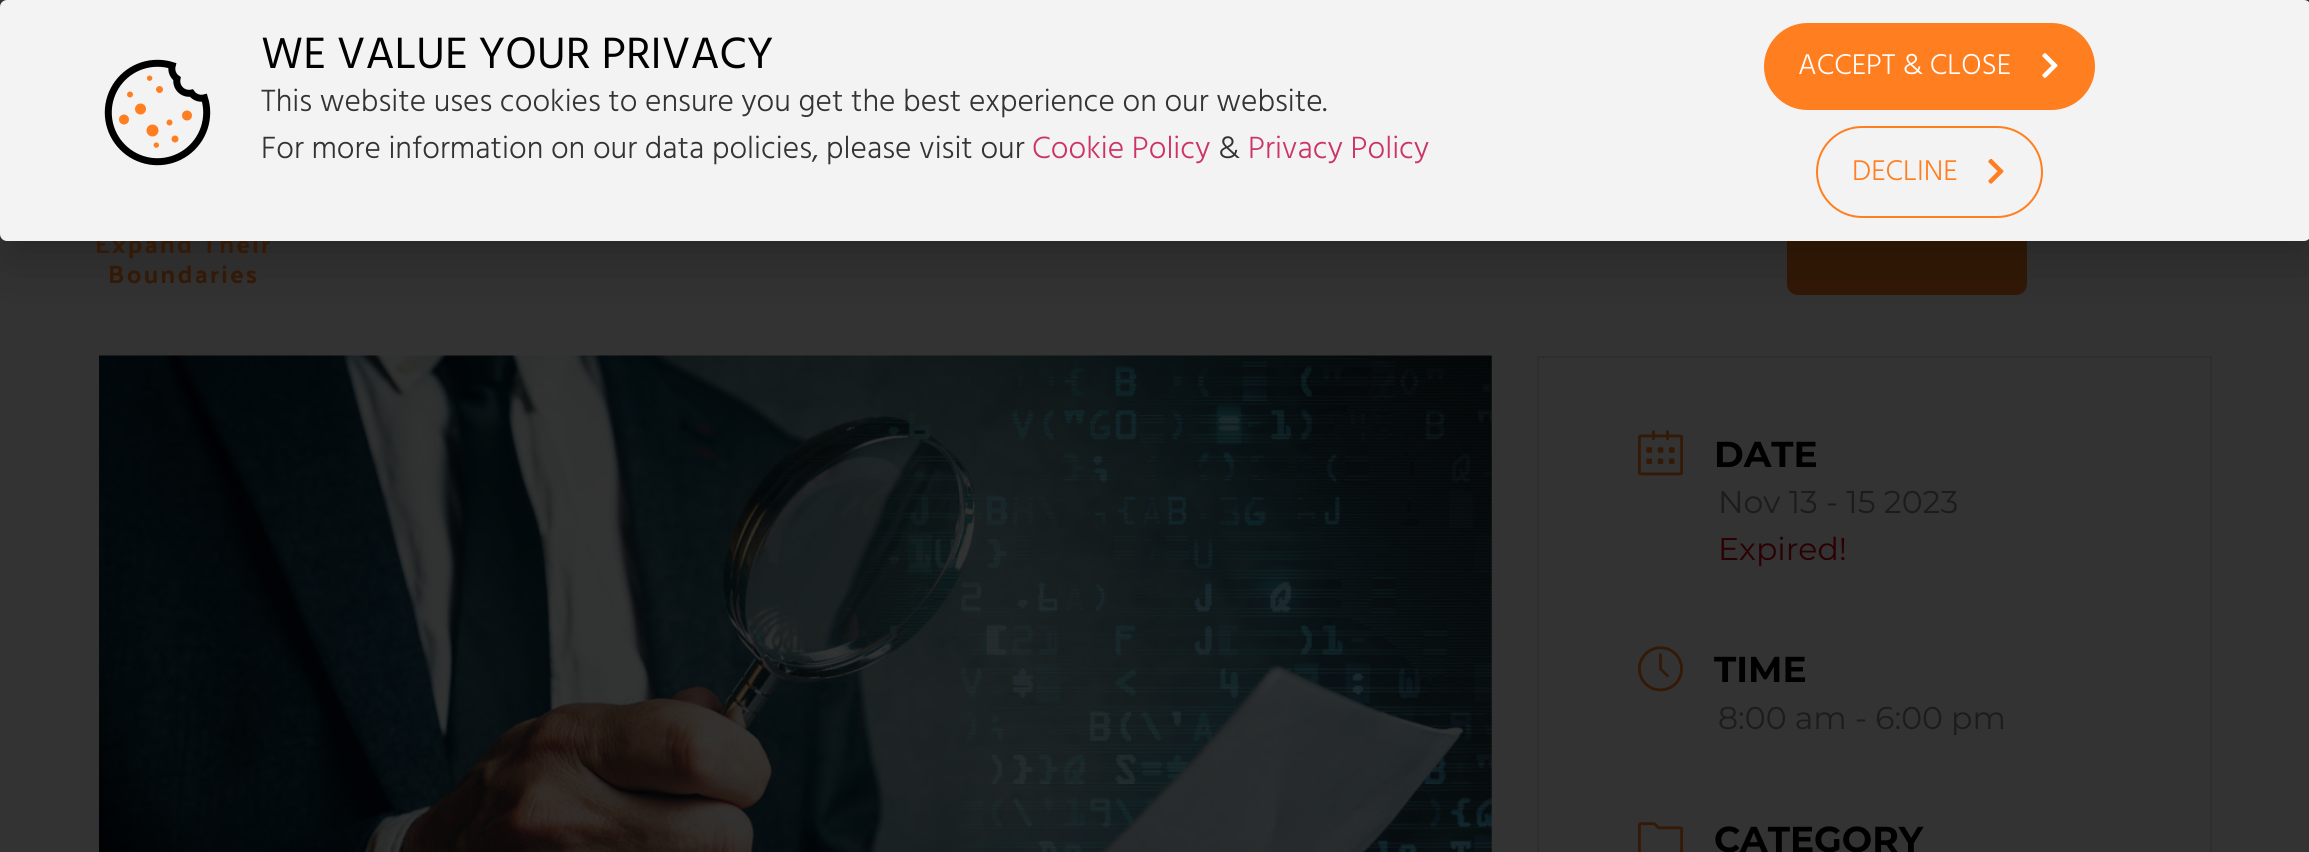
import math
import cairo

surface = cairo.ImageSurface(cairo.Format.RGB24, 2309, 852)
ctx = cairo.Context(surface)
options = cairo.FontOptions()
options.set_hint_metrics(cairo.HintMetrics.OFF)
options.set_hint_style(cairo.HintStyle.NONE)
ctx.set_font_options(options)
ctx.set_miter_limit(4)


def ink(r, g, b):
    ctx.set_source_rgb(r / 255, g / 255, b / 255)


def write(x, y, s, family, size, color, bold=False, italic=False):
    ctx.select_font_face(family, cairo.FontSlant.ITALIC if italic else cairo.FontSlant.NORMAL, cairo.FontWeight.BOLD if bold else cairo.FontWeight.NORMAL)
    ctx.set_font_size(size)
    ink(*color)
    ctx.move_to(x, y)
    ctx.show_text(s)


def write_spaced(x, y, s, letter, word):
    ctx.move_to(x, y)
    for ch in s:
        ctx.show_text(ch)
        ctx.rel_move_to(letter + word * (ch == ' '), 0)


def round_path(x, y, w, h, r):
    ctx.new_sub_path()
    for i, (u, v) in enumerate([(x + w - r, y + h - r), (x + r, y + h - r), (x + r, y + r), (x + w - r, y + r)]):
        ctx.arc(u, v, r, i * math.pi / 2, (i + 1) * math.pi / 2)
    ctx.close_path()


def blur_box(x, y, w, h, r, blur, alpha):
    ctx.push_group_with_content(cairo.Content.ALPHA)
    ctx.set_operator(cairo.Operator.SOURCE)
    for i in range(15, -16, -2):
        e = blur * i / 6
        if min(w, h) + 2 * e > 0:
            ctx.set_source_rgba(0, 0, 0, alpha * math.erfc((i - 1) / 8.5) / 2)
            round_path(x - e, y - e, w + 2 * e, h + 2 * e, max(0, min(r + e + blur * .6, min(w, h) / 2 + e)))
            ctx.fill()
    ctx.mask(ctx.pop_group())


def paste(path, x, y, w, h):
    ctx.save()
    ctx.set_source_surface(cairo.ImageSurface.create_from_png(path), x, y)
    ctx.rectangle(x, y, w, h)
    ctx.fill()
    ctx.restore()


s1 = dict(family="Hind", size=45, color=(0, 0, 0))
s2 = dict(family="Hind Light", size=31.5, color=(51, 51, 51))
s3 = dict(family="Hind Light", size=31.5, color=(204, 51, 102))
s4 = dict(family="Hind Light", size=29.25, color=(255, 255, 255))
s5 = dict(family="Hind Light", size=29.25, color=(255, 126, 32))
s6 = dict(family="Montserrat", size=36, color=(0, 0, 0), bold=True)
s7 = dict(family="Montserrat", size=31.5, color=(28, 28, 28))
s8 = dict(family="Montserrat", size=31.5, color=(43, 0, 2))

ink(51, 51, 51)
ctx.paint()
ink(51, 25, 6)
round_path(1787, 38, 240, 257, 11)
ctx.fill()
ink(0, 0, 0)
blur_box(-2, 11, 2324, 255, 14, 26, 0.2)
ctx.select_font_face("Palanquin Dark")
ctx.set_font_size(25.25)
ink(51, 25, 6)
write_spaced(95, 253, "Expand Their", 2.25, 0)
ink(243, 243, 243)
round_path(0, 0, 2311, 241, 7)
ctx.fill()
paste("pic1.png", 104, 59, 107, 107)
write(261, 68, "WE VALUE YOUR PRIVACY", **s1)
write(261, 111, "This website uses cookies to ensure you get the best experience on our website.", **s2)
write(261, 158, "For more information on our data policies, please visit our", **s2)
write(1032, 158, "Cookie Policy", **s3)
write(1218, 158, "&", **s2)
write(1248, 158, "Privacy Policy", **s3)
ink(255, 126, 32)
round_path(1764, 23, 331, 87, 43.5)
ctx.fill()
write(1798, 74, "ACCEPT & CLOSE", **s4)
paste("pic2.png", 2042, 53, 16, 25)
round_path(1817, 127, 225, 90, 45)
ink(255, 126, 32)
ctx.stroke()
write(1852, 180, "DECLINE", **s5)
paste("pic3.png", 1988, 158, 16, 26)
ctx.select_font_face("Palanquin Dark")
ctx.set_font_size(25.25)
ink(51, 25, 6)
write_spaced(108, 283, "Boundaries", 2.25, 0)
paste("pic4.png", 99, 355, 1393, 497)
ctx.rectangle(1538, 357, 673, 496)
ink(46, 46, 46)
ctx.stroke()
paste("pic5.png", 1638, 430, 45, 46)
write(1714, 467, "DATE", **s6)
write(1718, 513, "Nov 13 - 15 2023", **s7)
write(1718, 560, "Expired!", **s8)
paste("pic6.png", 1638, 646, 45, 46)
write(1714, 682, "TIME", **s6)
write(1718, 729, "8:00 am - 6:00 pm", **s7)
paste("pic7.png", 1638, 822, 45, 30)
write(1714, 852, "CATEGORY", **s6)
surface.write_to_png("screenshot.png")
